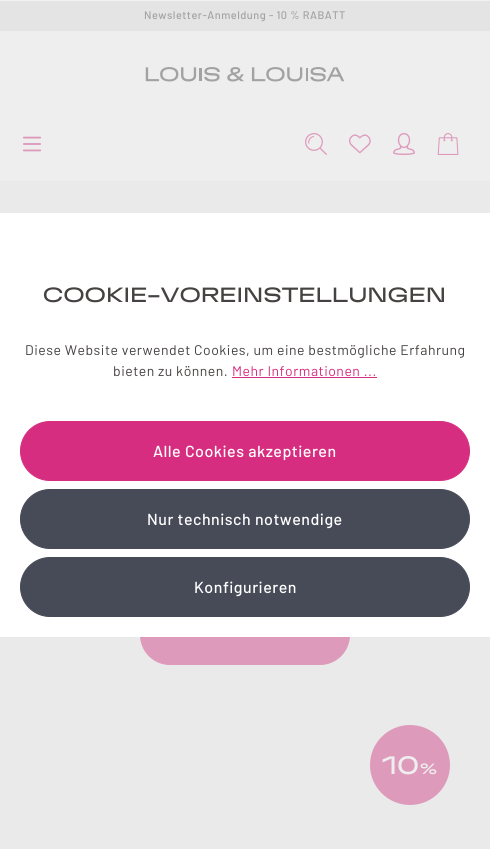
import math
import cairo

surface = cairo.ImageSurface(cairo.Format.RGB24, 490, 849)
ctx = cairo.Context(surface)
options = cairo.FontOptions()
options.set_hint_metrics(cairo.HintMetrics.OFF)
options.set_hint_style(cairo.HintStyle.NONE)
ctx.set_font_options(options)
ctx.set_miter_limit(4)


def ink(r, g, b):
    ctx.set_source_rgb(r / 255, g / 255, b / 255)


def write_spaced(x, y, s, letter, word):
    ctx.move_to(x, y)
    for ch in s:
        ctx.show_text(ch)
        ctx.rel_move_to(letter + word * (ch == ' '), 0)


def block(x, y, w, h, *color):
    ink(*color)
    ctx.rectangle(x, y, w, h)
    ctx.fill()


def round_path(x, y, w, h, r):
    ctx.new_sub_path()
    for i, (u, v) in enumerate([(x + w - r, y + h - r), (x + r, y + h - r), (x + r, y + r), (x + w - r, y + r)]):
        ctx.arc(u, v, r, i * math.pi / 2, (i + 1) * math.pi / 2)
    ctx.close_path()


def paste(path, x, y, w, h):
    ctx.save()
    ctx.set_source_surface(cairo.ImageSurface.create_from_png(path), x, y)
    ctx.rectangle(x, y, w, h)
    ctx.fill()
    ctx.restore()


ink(234, 234, 234)
ctx.paint()
block(0, 31, 490, 150, 238, 238, 238)
block(0, 1, 490, 30, 228, 228, 228)
ctx.select_font_face("Barlow Medium")
ctx.set_font_size(11)
ink(163, 162, 162)
write_spaced(144, 19, "Newsletter-Anmeldung - 10 % RABATT", 0.5, 0)
paste("pic1.png", 145, 67, 200, 15)
paste("pic2.png", 22, 136, 20, 16)
paste("pic3.png", 305, 133, 22, 22)
paste("pic4.png", 349, 134, 22, 20)
paste("pic5.png", 393, 133, 22, 22)
paste("pic6.png", 437, 133, 22, 22)
block(0, 0, 490, 1, 241, 241, 241)
ink(222, 154, 187)
round_path(140.5, 605.5, 209, 59, 29.5)
ctx.fill_preserve()
ctx.set_line_width(1)
ctx.stroke()
block(0, 213, 490, 424, 255, 255, 255)
ctx.select_font_face("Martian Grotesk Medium")
ctx.set_font_size(18)
ink(69, 66, 65)
write_spaced(43, 302, "COOKIE-VOREINSTELLUNGEN", 0.5, 0)
ctx.select_font_face("Barlow")
ctx.set_font_size(14)
write_spaced(25, 355, "Diese Website verwendet Cookies, um eine bestmögliche Erfahrung", 0.5, 0)
write_spaced(113, 376, "bieten zu können.", 0.5, 0)
ink(215, 45, 128)
write_spaced(232, 376, "Mehr Informationen ...", 0.5, 0)
block(232, 377, 145, 1, 215, 45, 128)
round_path(20.5, 421.5, 449, 59, 29.5)
ctx.fill_preserve()
ctx.stroke()
ctx.select_font_face("Barlow Medium")
ctx.set_font_size(16)
ink(255, 255, 255)
write_spaced(153, 457, "Alle Cookies akzeptieren", 0.5, 0)
ink(71, 74, 87)
round_path(20.5, 489.5, 449, 59, 29.5)
ctx.fill_preserve()
ctx.stroke()
ink(255, 255, 255)
write_spaced(147, 525, "Nur technisch notwendige", 0.5, 0)
ink(71, 74, 87)
round_path(20.5, 557.5, 449, 59, 29.5)
ctx.fill_preserve()
ctx.stroke()
ink(255, 255, 255)
write_spaced(194, 593, "Konfigurieren", 0.5, 0)
ink(222, 154, 187)
ctx.new_path()
ctx.arc(410, 765, 40, 0, 2 * math.pi)
ctx.fill()
ctx.select_font_face("Martian Grotesk Medium")
ctx.set_font_size(22)
ink(238, 238, 238)
write_spaced(382, 774, "10", 0.5, 0)
ctx.set_font_size(13)
write_spaced(420, 774, "%", 0.5, 0)
surface.write_to_png("screenshot.png")
